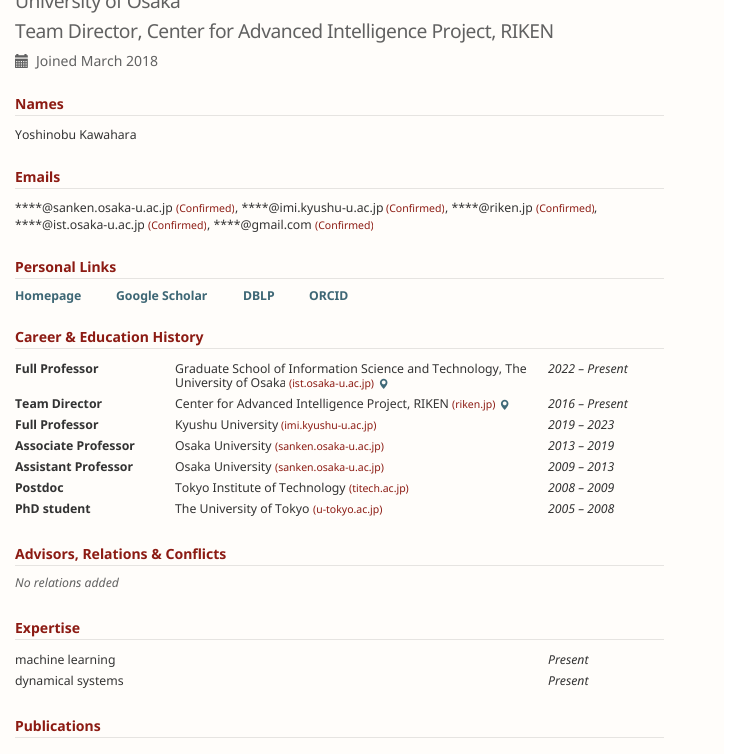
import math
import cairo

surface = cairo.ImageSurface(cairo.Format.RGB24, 739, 754)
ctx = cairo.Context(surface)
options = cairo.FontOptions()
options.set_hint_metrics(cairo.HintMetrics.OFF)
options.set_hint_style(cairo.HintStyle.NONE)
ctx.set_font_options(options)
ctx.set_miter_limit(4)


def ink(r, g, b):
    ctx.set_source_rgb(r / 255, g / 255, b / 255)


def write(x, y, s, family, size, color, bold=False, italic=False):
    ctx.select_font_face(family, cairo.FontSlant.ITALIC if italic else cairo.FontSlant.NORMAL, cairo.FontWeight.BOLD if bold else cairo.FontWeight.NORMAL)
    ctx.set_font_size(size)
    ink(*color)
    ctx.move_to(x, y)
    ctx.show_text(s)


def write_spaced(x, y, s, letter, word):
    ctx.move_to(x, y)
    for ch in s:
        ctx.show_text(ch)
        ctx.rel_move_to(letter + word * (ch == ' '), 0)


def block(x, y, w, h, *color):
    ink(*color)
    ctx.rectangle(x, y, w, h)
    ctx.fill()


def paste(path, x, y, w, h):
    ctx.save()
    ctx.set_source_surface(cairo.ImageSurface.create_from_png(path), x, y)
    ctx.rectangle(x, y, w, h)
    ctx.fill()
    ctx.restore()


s1 = dict(family="Noto Sans", size=14, color=(97, 97, 97))
s2 = dict(family="Noto Sans", size=14, color=(140, 27, 19), bold=True)
s3 = dict(family="Noto Sans", size=12.25, color=(51, 51, 51))
s4 = dict(family="Noto Sans", size=10.5, color=(140, 27, 19))
s5 = dict(family="Noto Sans", size=12.25, color=(62, 103, 117), bold=True)
s6 = dict(family="Noto Sans", size=12.25, color=(51, 51, 51), bold=True)
s7 = dict(family="Noto Sans", size=12.25, color=(51, 51, 51), italic=True)
s8 = dict(family="Noto Sans", size=12.25, color=(97, 97, 97), italic=True)

ink(255, 255, 255)
ctx.paint()
block(0, 0, 724, 754, 255, 253, 250)
ctx.select_font_face("Noto Sans")
ctx.set_font_size(19.25)
ink(97, 97, 97)
write_spaced(15, 8, "University of Osaka", -0.5, 0)
write_spaced(15, 38, "Team Director, Center for Advanced Intelligence Project, RIKEN", -0.5, 0)
paste("pic1.png", 15, 54, 13, 14)
write(36, 66, "Joined March 2018", **s1)
block(15, 115, 649, 1, 230, 228, 225)
write(15, 109, "Names", **s2)
write(15, 139, "Yoshinobu Kawahara", **s3)
block(15, 188, 649, 1, 230, 228, 225)
write(15, 182, "Emails", **s2)
write(15, 212, "****@sanken.osaka-u.ac.jp", **s3)
write(176, 212, "(Confirmed)", **s4)
write(235, 212, ", ****@imi.kyushu-u.ac.jp", **s3)
write(386, 212, "(Confirmed)", **s4)
write(445, 212, ", ****@riken.jp", **s3)
write(536, 212, "(Confirmed)", **s4)
write(594, 212, ",", **s3)
write(15, 229, "****@ist.osaka-u.ac.jp", **s3)
write(148, 229, "(Confirmed)", **s4)
write(207, 229, ", ****@gmail.com", **s3)
write(315, 229, "(Confirmed)", **s4)
block(15, 278, 649, 1, 230, 228, 225)
write(15, 272, "Personal Links", **s2)
write(15, 300, "Homepage", **s5)
write(116, 300, "Google Scholar", **s5)
write(243, 300, "DBLP", **s5)
write(309, 300, "ORCID", **s5)
block(15, 348, 649, 1, 230, 228, 225)
write(15, 342, "Career & Education History", **s2)
write(15, 373, "Full Professor", **s6)
write(175, 373, "Graduate School of Information Science and Technology, The", **s3)
write(175, 387, "University of Osaka", **s3)
write(289, 387, "(ist.osaka-u.ac.jp)", **s4)
paste("pic2.png", 379, 378, 9, 11)
write(548, 373, "2022 – Present", **s7)
write(15, 408, "Team Director", **s6)
write(175, 408, "Center for Advanced Intelligence Project, RIKEN", **s3)
write(452, 408, "(riken.jp)", **s4)
paste("pic2.png", 500, 399, 9, 11)
write(548, 408, "2016 – Present", **s7)
write(15, 429, "Full Professor", **s6)
write(175, 429, "Kyushu University", **s3)
write(281, 429, "(imi.kyushu-u.ac.jp)", **s4)
write(548, 429, "2019 – 2023", **s7)
write(15, 450, "Associate Professor", **s6)
write(175, 450, "Osaka University", **s3)
write(275, 450, "(sanken.osaka-u.ac.jp)", **s4)
write(548, 450, "2013 – 2019", **s7)
write(15, 471, "Assistant Professor", **s6)
write(175, 471, "Osaka University", **s3)
write(275, 471, "(sanken.osaka-u.ac.jp)", **s4)
write(548, 471, "2009 – 2013", **s7)
write(15, 492, "Postdoc", **s6)
write(175, 492, "Tokyo Institute of Technology", **s3)
write(349, 492, "(titech.ac.jp)", **s4)
write(548, 492, "2008 – 2009", **s7)
write(15, 513, "PhD student", **s6)
write(175, 513, "The University of Tokyo", **s3)
write(313, 513, "(u-tokyo.ac.jp)", **s4)
write(548, 513, "2005 – 2008", **s7)
block(15, 565, 649, 1, 230, 228, 225)
write(15, 559, "Advisors, Relations & Conflicts", **s2)
write(15, 587, "No relations added", **s8)
block(15, 639, 649, 1, 230, 228, 225)
write(15, 633, "Expertise", **s2)
write(15, 664, "machine learning", **s3)
write(548, 664, "Present", **s7)
write(15, 685, "dynamical systems", **s3)
write(548, 685, "Present", **s7)
block(15, 737, 649, 1, 230, 228, 225)
write(15, 731, "Publications", **s2)
surface.write_to_png("screenshot.png")
